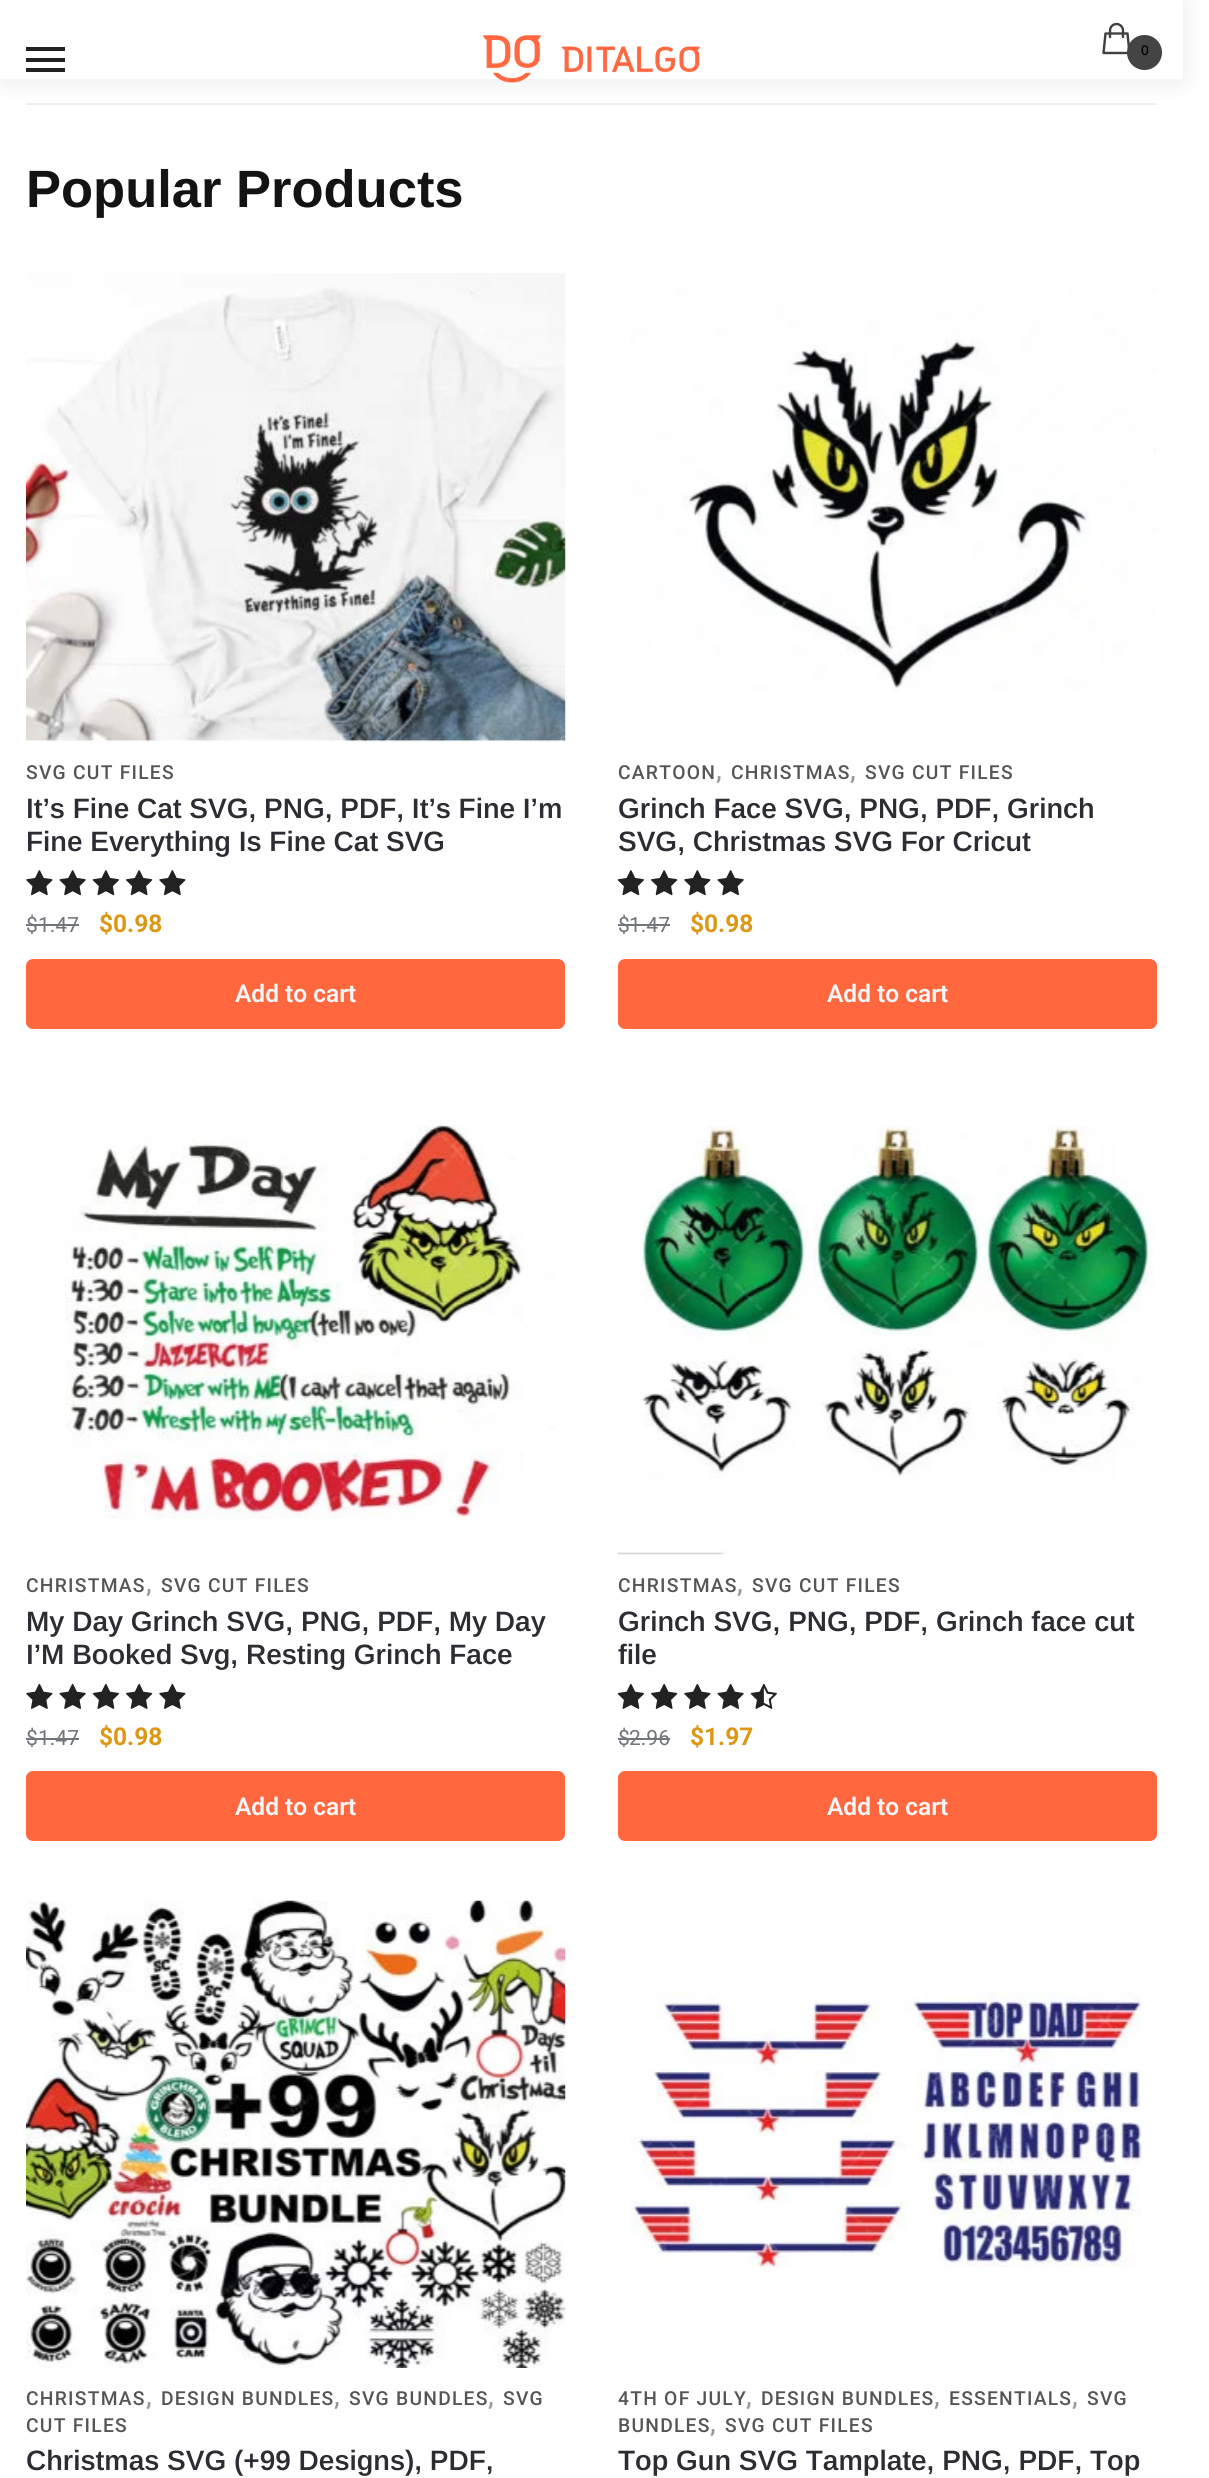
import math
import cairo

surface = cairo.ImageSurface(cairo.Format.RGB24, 1209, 2478)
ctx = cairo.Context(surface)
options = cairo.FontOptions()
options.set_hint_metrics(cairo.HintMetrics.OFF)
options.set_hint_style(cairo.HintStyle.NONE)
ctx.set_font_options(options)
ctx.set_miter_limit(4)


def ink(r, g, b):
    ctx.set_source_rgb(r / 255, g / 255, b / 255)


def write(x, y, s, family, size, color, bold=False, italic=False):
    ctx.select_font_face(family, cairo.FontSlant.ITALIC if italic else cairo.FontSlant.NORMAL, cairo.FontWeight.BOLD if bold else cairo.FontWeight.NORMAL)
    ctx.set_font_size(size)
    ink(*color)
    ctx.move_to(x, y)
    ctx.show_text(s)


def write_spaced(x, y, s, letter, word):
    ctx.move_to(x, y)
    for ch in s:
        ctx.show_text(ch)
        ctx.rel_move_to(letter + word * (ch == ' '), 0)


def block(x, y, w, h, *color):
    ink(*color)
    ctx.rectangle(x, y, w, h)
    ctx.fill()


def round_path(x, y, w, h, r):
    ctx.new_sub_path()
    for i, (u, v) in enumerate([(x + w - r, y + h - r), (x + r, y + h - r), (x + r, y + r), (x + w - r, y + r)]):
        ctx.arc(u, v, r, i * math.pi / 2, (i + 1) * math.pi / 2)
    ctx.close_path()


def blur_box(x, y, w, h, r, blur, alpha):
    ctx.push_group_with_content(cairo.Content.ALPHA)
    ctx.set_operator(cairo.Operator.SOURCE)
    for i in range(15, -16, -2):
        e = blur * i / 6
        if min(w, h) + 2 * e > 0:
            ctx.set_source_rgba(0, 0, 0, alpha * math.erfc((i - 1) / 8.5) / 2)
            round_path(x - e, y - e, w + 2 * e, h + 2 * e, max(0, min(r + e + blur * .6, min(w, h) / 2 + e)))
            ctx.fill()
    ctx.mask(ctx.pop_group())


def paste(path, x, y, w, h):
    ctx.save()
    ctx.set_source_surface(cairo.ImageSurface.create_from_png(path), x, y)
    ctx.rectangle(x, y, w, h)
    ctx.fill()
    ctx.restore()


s1 = dict(family="Arimo", size=52.5, color=(19, 19, 21), bold=True)
s2 = dict(family="Arimo SemiBold", size=28, color=(44, 45, 51))
s3 = dict(family="Roboto", size=21, color=(114, 118, 124))
s4 = dict(family="Roboto", size=24.5, color=(220, 152, 20), bold=True)
s5 = dict(family="Roboto SemiBold", size=24.5, color=(247, 247, 247))

ink(255, 255, 255)
ctx.paint()
block(26, 103, 1131, 2, 238, 238, 238)
ink(0, 0, 0)
blur_box(0, 2, 1183, 79, 0, 13, 0.08)
block(0, 0, 1183, 79, 255, 255, 255)
block(26, 47, 39, 4, 34, 34, 34)
block(26, 58, 39, 4, 34, 34, 34)
block(26, 68, 39, 4, 34, 34, 34)
paste("pic1.png", 483, 35, 218, 48)
ctx.new_path()
ctx.move_to(1123, 37)
ctx.line_to(1123, 30.5)
ctx.curve_to(1123, 27, 1120, 24, 1116.5, 24)
ctx.curve_to(1113, 24, 1110, 27, 1110, 30.5)
ctx.line_to(1110, 37)
ctx.move_to(1105.5, 33.5)
ctx.line_to(1127.5, 33.5)
ctx.line_to(1129.5, 53)
ctx.line_to(1103.5, 53)
ctx.close_path()
ink(64, 64, 64)
ctx.set_line_width(2.4)
ctx.set_line_cap(cairo.LineCap.ROUND)
ctx.set_line_join(cairo.LineJoin.ROUND)
ctx.stroke()
ink(68, 68, 68)
ctx.arc(1144.5, 52.5, 16.5, 0, 2 * math.pi)
ctx.fill_preserve()
ctx.set_line_width(2)
ctx.set_line_cap(cairo.LineCap.BUTT)
ctx.set_line_join(cairo.LineJoin.MITER)
ctx.stroke()
ctx.select_font_face("Arimo Medium")
ctx.set_font_size(14)
ink(0, 0, 0)
write_spaced(1141, 55, "0", -1, 0)
write(26, 207, "Popular Products", **s1)
paste("pic2.png", 26, 273, 540, 469)
ctx.select_font_face("Roboto Medium")
ctx.set_font_size(19.25)
ink(85, 85, 85)
write_spaced(26, 779, "SVG CUT FILES", 1.25, 0)
write(26, 818, "It’s Fine Cat SVG, PNG, PDF, It’s Fine I’m", **s2)
write(26, 851, "Fine Everything Is Fine Cat SVG", **s2)
paste("pic3.png", 26, 870, 27, 26)
paste("pic4.png", 59, 870, 27, 26)
paste("pic5.png", 92, 870, 27, 26)
paste("pic6.png", 126, 870, 27, 26)
paste("pic3.png", 159, 870, 27, 26)
write(26, 932, "$", **s3)
write(38, 932, "1.47", **s3)
block(39, 924, 40, 2, 114, 118, 124)
block(26, 924, 13, 2, 114, 118, 124)
write(99, 932, "$", **s4)
write(113, 932, "0.98", **s4)
ink(255, 104, 63)
round_path(26, 959, 539, 70, 7)
ctx.fill()
write(235, 1002, "Add to cart", **s5)
paste("pic7.png", 631, 288, 525, 403)
ctx.select_font_face("Roboto Medium")
ctx.set_font_size(19.25)
ink(85, 85, 85)
write_spaced(618, 779, "CARTOON", 1.25, 0)
ctx.set_font_size(26)
ink(153, 153, 153)
write_spaced(716, 779, ",", 1.25, 0)
ctx.set_font_size(19.25)
ink(85, 85, 85)
write_spaced(731, 779, "CHRISTMAS", 1.25, 0)
ctx.set_font_size(26)
ink(153, 153, 153)
write_spaced(850, 779, ",", 1.25, 0)
ctx.set_font_size(19.25)
ink(85, 85, 85)
write_spaced(865, 779, "SVG CUT FILES", 1.25, 0)
write(618, 818, "Grinch Face SVG, PNG, PDF, Grinch", **s2)
write(618, 851, "SVG, Christmas SVG For Cricut", **s2)
paste("pic5.png", 617, 870, 27, 26)
paste("pic6.png", 651, 870, 27, 26)
paste("pic3.png", 684, 870, 27, 26)
paste("pic4.png", 717, 870, 27, 26)
write(618, 932, "$", **s3)
write(629, 932, "1.47", **s3)
block(630, 924, 40, 2, 114, 118, 124)
block(618, 924, 12, 2, 114, 118, 124)
write(690, 932, "$", **s4)
write(704, 932, "0.98", **s4)
ink(255, 104, 63)
round_path(618, 959, 539, 70, 7)
ctx.fill()
write(827, 1002, "Add to cart", **s5)
paste("pic8.png", 65, 1124, 490, 395)
ctx.select_font_face("Roboto Medium")
ctx.set_font_size(19.25)
ink(85, 85, 85)
write_spaced(26, 1592, "CHRISTMAS", 1.25, 0)
ctx.set_font_size(26)
ink(153, 153, 153)
write_spaced(146, 1592, ",", 1.25, 0)
ctx.set_font_size(19.25)
ink(85, 85, 85)
write_spaced(161, 1592, "SVG CUT FILES", 1.25, 0)
write(26, 1631, "My Day Grinch SVG, PNG, PDF, My Day", **s2)
write(26, 1664, "I’M Booked Svg, Resting Grinch Face", **s2)
paste("pic9.png", 26, 1683, 27, 26)
paste("pic10.png", 59, 1683, 27, 26)
paste("pic11.png", 92, 1683, 27, 26)
paste("pic12.png", 126, 1684, 27, 25)
paste("pic9.png", 159, 1683, 27, 26)
write(26, 1745, "$", **s3)
write(38, 1745, "1.47", **s3)
block(39, 1738, 40, 2, 114, 118, 124)
block(26, 1738, 13, 2, 114, 118, 124)
write(99, 1745, "$", **s4)
write(113, 1745, "0.98", **s4)
ink(255, 104, 63)
round_path(26, 1771, 539, 70, 7)
ctx.fill()
write(235, 1815, "Add to cart", **s5)
paste("pic13.png", 617, 1125, 537, 430)
ctx.select_font_face("Roboto Medium")
ctx.set_font_size(19.25)
ink(85, 85, 85)
write_spaced(618, 1592, "CHRISTMAS", 1.25, 0)
ctx.set_font_size(26)
ink(153, 153, 153)
write_spaced(737, 1592, ",", 1.25, 0)
ctx.set_font_size(19.25)
ink(85, 85, 85)
write_spaced(752, 1592, "SVG CUT FILES", 1.25, 0)
write(618, 1631, "Grinch SVG, PNG, PDF, Grinch face cut", **s2)
write(618, 1664, "file", **s2)
paste("pic11.png", 617, 1683, 27, 26)
paste("pic12.png", 651, 1684, 27, 25)
paste("pic9.png", 684, 1683, 27, 26)
paste("pic10.png", 717, 1683, 27, 26)
paste("pic14.png", 750, 1683, 27, 26)
write(618, 1745, "$", **s3)
write(629, 1745, "2.96", **s3)
block(630, 1738, 40, 2, 114, 118, 124)
block(618, 1738, 12, 2, 114, 118, 124)
write(690, 1745, "$", **s4)
write(704, 1745, "1.97", **s4)
ink(255, 104, 63)
round_path(618, 1771, 539, 70, 7)
ctx.fill()
write(827, 1815, "Add to cart", **s5)
paste("pic15.png", 26, 1900, 540, 468)
ctx.select_font_face("Roboto Medium")
ctx.set_font_size(19.25)
ink(85, 85, 85)
write_spaced(26, 2405, "CHRISTMAS", 1.25, 0)
ctx.set_font_size(26)
ink(153, 153, 153)
write_spaced(146, 2405, ",", 1.25, 0)
ctx.set_font_size(19.25)
ink(85, 85, 85)
write_spaced(161, 2405, "DESIGN BUNDLES", 1.25, 0)
ctx.set_font_size(26)
ink(153, 153, 153)
write_spaced(334, 2405, ",", 1.25, 0)
ctx.set_font_size(19.25)
ink(85, 85, 85)
write_spaced(349, 2405, "SVG BUNDLES", 1.25, 0)
ctx.set_font_size(26)
ink(153, 153, 153)
write_spaced(488, 2405, ",", 1.25, 0)
ctx.set_font_size(19.25)
ink(85, 85, 85)
write_spaced(503, 2405, "SVG", 1.25, 0)
write_spaced(26, 2432, "CUT FILES", 1.25, 0)
write(26, 2470, "Christmas SVG (+99 Designs), PDF,", **s2)
paste("pic16.png", 630, 1992, 512, 276)
ctx.select_font_face("Roboto Medium")
ctx.set_font_size(19.25)
ink(85, 85, 85)
write_spaced(618, 2405, "4TH OF JULY", 1.25, 0)
ctx.set_font_size(26)
ink(153, 153, 153)
write_spaced(746, 2405, ",", 1.25, 0)
ctx.set_font_size(19.25)
ink(85, 85, 85)
write_spaced(761, 2405, "DESIGN BUNDLES", 1.25, 0)
ctx.set_font_size(26)
ink(153, 153, 153)
write_spaced(934, 2405, ",", 1.25, 0)
ctx.set_font_size(19.25)
ink(85, 85, 85)
write_spaced(949, 2405, "ESSENTIALS", 1.25, 0)
ctx.set_font_size(26)
ink(153, 153, 153)
write_spaced(1072, 2405, ",", 1.25, 0)
ctx.set_font_size(19.25)
ink(85, 85, 85)
write_spaced(1087, 2405, "SVG", 1.25, 0)
write_spaced(618, 2432, "BUNDLES", 1.25, 0)
ctx.set_font_size(26)
ink(153, 153, 153)
write_spaced(710, 2432, ",", 1.25, 0)
ctx.set_font_size(19.25)
ink(85, 85, 85)
write_spaced(725, 2432, "SVG CUT FILES", 1.25, 0)
write(618, 2470, "Top Gun SVG Tamplate, PNG, PDF, Top", **s2)
surface.write_to_png("screenshot.png")
